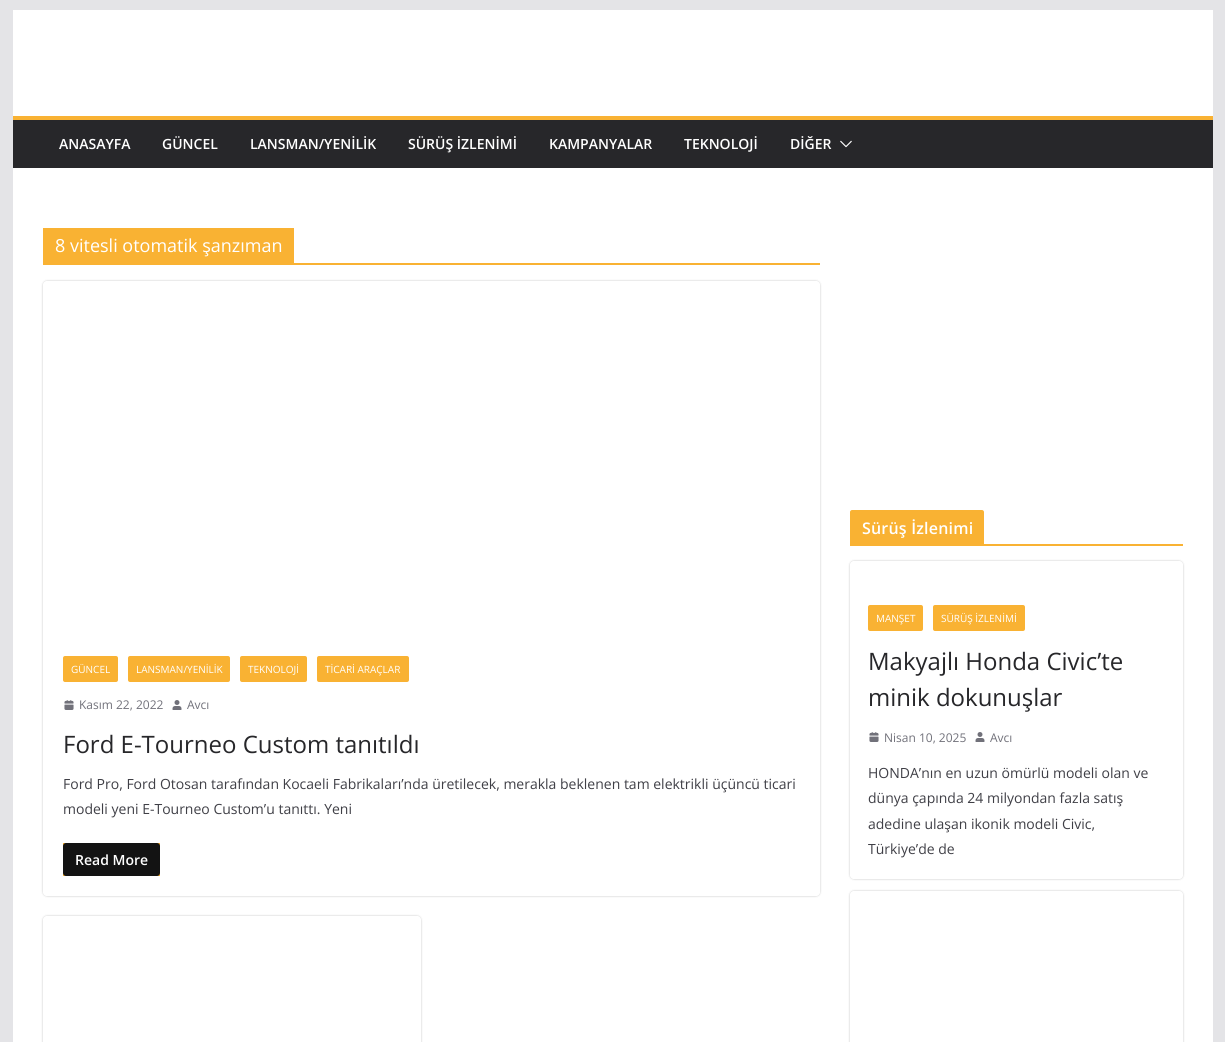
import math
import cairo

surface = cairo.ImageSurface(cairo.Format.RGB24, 1225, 1042)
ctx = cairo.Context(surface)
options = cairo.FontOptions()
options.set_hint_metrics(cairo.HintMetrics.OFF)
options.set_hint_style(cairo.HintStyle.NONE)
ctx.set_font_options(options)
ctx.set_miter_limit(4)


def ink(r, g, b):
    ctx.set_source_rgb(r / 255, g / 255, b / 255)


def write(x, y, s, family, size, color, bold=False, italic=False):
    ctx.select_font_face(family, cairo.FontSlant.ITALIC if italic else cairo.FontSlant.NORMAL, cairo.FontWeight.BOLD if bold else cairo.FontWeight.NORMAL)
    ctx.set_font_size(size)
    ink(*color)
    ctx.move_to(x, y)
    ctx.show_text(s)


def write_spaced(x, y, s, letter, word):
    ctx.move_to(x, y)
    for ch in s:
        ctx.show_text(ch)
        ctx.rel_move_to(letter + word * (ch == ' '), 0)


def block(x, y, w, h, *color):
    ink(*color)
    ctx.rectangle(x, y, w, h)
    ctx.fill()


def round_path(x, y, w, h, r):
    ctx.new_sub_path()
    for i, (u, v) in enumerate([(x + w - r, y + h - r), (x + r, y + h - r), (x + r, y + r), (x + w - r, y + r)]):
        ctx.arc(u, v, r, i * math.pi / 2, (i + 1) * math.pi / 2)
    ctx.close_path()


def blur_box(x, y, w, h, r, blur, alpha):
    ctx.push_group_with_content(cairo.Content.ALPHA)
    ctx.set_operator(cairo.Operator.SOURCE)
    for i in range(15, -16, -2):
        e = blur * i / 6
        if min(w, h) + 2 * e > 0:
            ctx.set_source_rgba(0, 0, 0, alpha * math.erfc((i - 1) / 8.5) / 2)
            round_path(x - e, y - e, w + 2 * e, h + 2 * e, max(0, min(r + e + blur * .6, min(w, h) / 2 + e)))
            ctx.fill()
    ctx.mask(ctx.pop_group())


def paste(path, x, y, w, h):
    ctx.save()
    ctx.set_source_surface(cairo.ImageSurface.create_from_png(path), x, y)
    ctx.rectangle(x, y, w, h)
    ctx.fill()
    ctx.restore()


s1 = dict(family="Open Sans SemiBold", size=14, color=(255, 255, 255))
s2 = dict(family="Open Sans", size=18, color=(255, 255, 255))
s3 = dict(family="Open Sans", size=10, color=(255, 255, 255))
s4 = dict(family="Open Sans", size=12, color=(113, 113, 122))
s5 = dict(family="Open Sans", size=24, color=(39, 39, 42))
s6 = dict(family="Open Sans", size=14, color=(63, 63, 70))

ink(228, 228, 231)
ctx.paint()
block(13, 10, 1200, 106, 255, 255, 255)
block(13, 120, 1200, 48, 39, 39, 42)
block(13, 116, 1200, 4, 249, 178, 51)
write(59, 149, "ANASAYFA", **s1)
write(162, 149, "GÜNCEL", **s1)
write(250, 149, "LANSMAN/YENİLİK", **s1)
write(408, 149, "SÜRÜŞ İZLENİMİ", **s1)
write(549, 149, "KAMPANYALAR", **s1)
write(684, 149, "TEKNOLOJİ", **s1)
write(790, 149, "DİĞER", **s1)
paste("pic1.png", 840, 140, 12, 8)
block(13, 168, 1200, 874, 255, 255, 255)
block(43, 263, 777, 2, 249, 178, 51)
block(43, 228, 251, 35, 249, 178, 51)
write(55, 252, "8 vitesli otomatik şanzıman", **s2)
ctx.save()
ctx.set_fill_rule(cairo.FillRule.EVEN_ODD)
ctx.new_path()
ctx.move_to(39, 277)
ctx.line_to(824, 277)
ctx.line_to(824, 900)
ctx.line_to(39, 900)
ctx.close_path()
ctx.move_to(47, 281)
ctx.line_to(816, 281)
ctx.curve_to(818, 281, 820, 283, 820, 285)
ctx.line_to(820, 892)
ctx.curve_to(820, 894, 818, 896, 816, 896)
ctx.line_to(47, 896)
ctx.curve_to(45, 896, 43, 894, 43, 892)
ctx.line_to(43, 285)
ctx.curve_to(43, 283, 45, 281, 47, 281)
ctx.close_path()
ctx.clip()
ink(0, 0, 0)
blur_box(43, 281, 777, 615, 4, 1, 0.24)
ctx.restore()
ink(249, 178, 51)
round_path(63, 656, 55, 26, 2)
ctx.fill()
write(71, 673, "GÜNCEL", **s3)
ink(249, 178, 51)
round_path(128, 656, 102, 26, 2)
ctx.fill()
write(136, 673, "LANSMAN/YENİLİK", **s3)
ink(249, 178, 51)
round_path(240, 656, 67, 26, 2)
ctx.fill()
write(248, 673, "TEKNOLOJİ", **s3)
ink(249, 178, 51)
round_path(317, 656, 92, 26, 2)
ctx.fill()
write(325, 673, "TİCARİ ARAÇLAR", **s3)
paste("pic2.png", 64, 700, 10, 10)
write(79, 709, "Kasım 22, 2022", **s4)
paste("pic3.png", 172, 700, 10, 10)
write(187, 709, "Avcı", **s4)
write(63, 753, "Ford E-Tourneo Custom tanıtıldı", **s5)
write(63, 789, "Ford Pro, Ford Otosan tarafından Kocaeli Fabrikaları’nda üretilecek, merakla beklenen tam elektrikli üçüncü ticari", **s6)
write(63, 814, "modeli yeni E-Tourneo Custom’u tanıttı. Yeni", **s6)
block(63, 843, 97, 33, 249, 178, 51)
ink(19, 19, 19)
round_path(63, 843, 97, 33, 3)
ctx.fill()
write(75, 865, "Read More", **s1)
ctx.save()
ctx.set_fill_rule(cairo.FillRule.EVEN_ODD)
ctx.new_path()
ctx.move_to(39, 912)
ctx.line_to(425, 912)
ctx.line_to(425, 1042)
ctx.line_to(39, 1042)
ctx.close_path()
ctx.move_to(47, 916)
ctx.line_to(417, 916)
ctx.curve_to(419, 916, 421, 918, 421, 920)
ctx.line_to(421, 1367)
ctx.curve_to(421, 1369, 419, 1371, 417, 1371)
ctx.line_to(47, 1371)
ctx.curve_to(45, 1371, 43, 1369, 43, 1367)
ctx.line_to(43, 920)
ctx.curve_to(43, 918, 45, 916, 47, 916)
ctx.close_path()
ctx.clip()
ink(0, 0, 0)
blur_box(43, 916, 378, 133, 4, 1, 0.24)
ctx.restore()
block(850, 544, 333, 2, 249, 178, 51)
ctx.new_path()
ctx.move_to(852, 510)
ctx.line_to(982, 510)
ctx.curve_to(983, 510, 984, 511, 984, 512)
ctx.line_to(984, 544)
ctx.line_to(850, 544)
ctx.line_to(850, 512)
ctx.curve_to(850, 511, 851, 510, 852, 510)
ctx.close_path()
ctx.fill()
ctx.set_font_size(16)
ink(255, 255, 255)
write_spaced(862, 534, "Sürüş İzlenimi", 0.2, 0)
ctx.save()
ctx.set_fill_rule(cairo.FillRule.EVEN_ODD)
ctx.new_path()
ctx.move_to(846, 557)
ctx.line_to(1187, 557)
ctx.line_to(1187, 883)
ctx.line_to(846, 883)
ctx.close_path()
ctx.move_to(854, 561)
ctx.line_to(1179, 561)
ctx.curve_to(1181, 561, 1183, 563, 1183, 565)
ctx.line_to(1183, 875)
ctx.curve_to(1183, 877, 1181, 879, 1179, 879)
ctx.line_to(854, 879)
ctx.curve_to(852, 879, 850, 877, 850, 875)
ctx.line_to(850, 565)
ctx.curve_to(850, 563, 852, 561, 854, 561)
ctx.close_path()
ctx.clip()
ink(0, 0, 0)
blur_box(850, 561, 333, 318, 4, 1, 0.24)
ctx.restore()
ink(249, 178, 51)
round_path(868, 605, 55, 26, 2)
ctx.fill()
write(876, 622, "MANŞET", **s3)
ink(249, 178, 51)
round_path(933, 605, 92, 26, 2)
ctx.fill()
write(941, 622, "SÜRÜŞ İZLENİMİ", **s3)
write(868, 670, "Makyajlı Honda Civic’te", **s5)
write(868, 706, "minik dokunuşlar", **s5)
paste("pic2.png", 869, 732, 10, 10)
write(884, 742, "Nisan 10, 2025", **s4)
paste("pic3.png", 975, 732, 10, 10)
write(990, 742, "Avcı", **s4)
write(868, 778, "HONDA’nın en uzun ömürlü modeli olan ve", **s6)
write(868, 803, "dünya çapında 24 milyondan fazla satış", **s6)
write(868, 829, "adedine ulaşan ikonik modeli Civic,", **s6)
write(868, 854, "Türkiye’de de", **s6)
ctx.save()
ctx.set_fill_rule(cairo.FillRule.EVEN_ODD)
ctx.new_path()
ctx.move_to(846, 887)
ctx.line_to(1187, 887)
ctx.line_to(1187, 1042)
ctx.line_to(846, 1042)
ctx.close_path()
ctx.move_to(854, 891)
ctx.line_to(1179, 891)
ctx.curve_to(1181, 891, 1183, 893, 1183, 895)
ctx.line_to(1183, 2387)
ctx.curve_to(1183, 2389, 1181, 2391, 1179, 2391)
ctx.line_to(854, 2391)
ctx.curve_to(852, 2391, 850, 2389, 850, 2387)
ctx.line_to(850, 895)
ctx.curve_to(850, 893, 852, 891, 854, 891)
ctx.close_path()
ctx.clip()
ink(0, 0, 0)
blur_box(850, 891, 333, 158, 4, 1, 0.24)
ctx.restore()
surface.write_to_png("screenshot.png")
